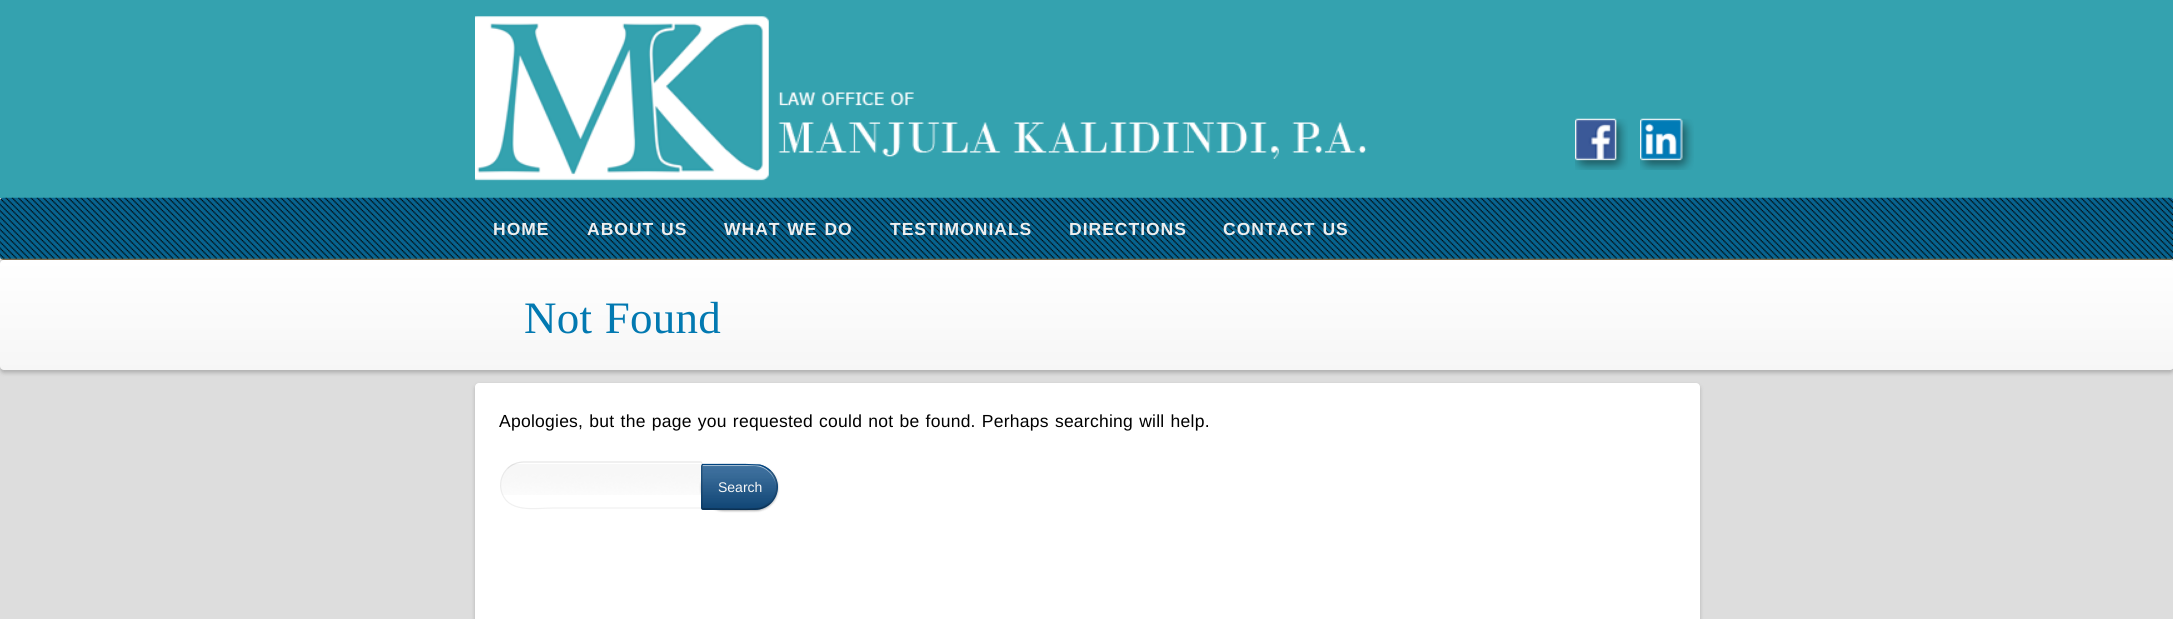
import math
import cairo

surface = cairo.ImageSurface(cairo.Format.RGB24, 2173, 619)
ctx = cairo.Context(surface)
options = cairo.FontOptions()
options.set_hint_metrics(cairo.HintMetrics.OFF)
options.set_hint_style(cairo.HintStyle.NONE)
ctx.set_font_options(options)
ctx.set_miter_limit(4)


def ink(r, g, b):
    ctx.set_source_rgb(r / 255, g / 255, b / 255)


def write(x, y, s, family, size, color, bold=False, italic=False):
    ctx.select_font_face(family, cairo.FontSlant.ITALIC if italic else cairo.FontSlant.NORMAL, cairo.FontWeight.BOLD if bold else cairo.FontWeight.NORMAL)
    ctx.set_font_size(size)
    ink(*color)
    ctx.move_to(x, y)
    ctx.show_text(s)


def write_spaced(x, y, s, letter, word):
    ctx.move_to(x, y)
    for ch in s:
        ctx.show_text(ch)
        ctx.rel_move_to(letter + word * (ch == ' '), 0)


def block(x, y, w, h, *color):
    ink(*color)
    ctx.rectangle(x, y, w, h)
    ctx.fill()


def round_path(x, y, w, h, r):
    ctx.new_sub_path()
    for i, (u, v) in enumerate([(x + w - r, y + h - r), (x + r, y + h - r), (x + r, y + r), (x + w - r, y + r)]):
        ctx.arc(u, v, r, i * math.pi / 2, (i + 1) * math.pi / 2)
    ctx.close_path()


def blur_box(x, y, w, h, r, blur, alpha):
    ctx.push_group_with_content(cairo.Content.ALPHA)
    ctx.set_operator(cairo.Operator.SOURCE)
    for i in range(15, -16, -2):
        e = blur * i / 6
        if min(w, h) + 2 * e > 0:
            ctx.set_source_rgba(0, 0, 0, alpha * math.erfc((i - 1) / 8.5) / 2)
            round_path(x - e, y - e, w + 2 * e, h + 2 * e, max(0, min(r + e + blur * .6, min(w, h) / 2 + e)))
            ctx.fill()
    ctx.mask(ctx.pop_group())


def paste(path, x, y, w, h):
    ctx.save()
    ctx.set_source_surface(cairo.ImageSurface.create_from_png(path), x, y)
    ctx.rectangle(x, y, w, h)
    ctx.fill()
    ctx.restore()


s1 = dict(family="Liberation Sans", size=14, color=(248, 248, 248))

ink(221, 221, 221)
ctx.paint()
block(0, 0, 2173, 198, 52, 162, 175)
paste("pic1.png", 475, 16, 892, 165)
paste("pic2.png", 1575, 118, 53, 52)
paste("pic3.png", 1640, 118, 54, 52)
ink(0, 0, 0)
blur_box(0, 263, 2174, 110, 4, 2, 0.2)
paste("pic4.png", 0, 197, 2173, 63)
ctx.select_font_face("Liberation Sans", cairo.FontSlant.NORMAL, cairo.FontWeight.BOLD)
ctx.set_font_size(17.5)
ink(238, 238, 238)
write_spaced(493, 235, "HOME", 1, 0)
write_spaced(587, 235, "ABOUT US", 1, 1)
write_spaced(724, 235, "WHAT WE DO", 1, 1)
write_spaced(890, 235, "TESTIMONIALS", 1, 0)
write_spaced(1069, 235, "DIRECTIONS", 1, 0)
write_spaced(1223, 235, "CONTACT US", 1, 1)
gradient = cairo.LinearGradient(0, 370, 0, 260)
gradient.add_color_stop_rgba(0, 0.965, 0.965, 0.965, 1)
gradient.add_color_stop_rgba(1, 1, 1, 1, 1)
ctx.set_source(gradient)
round_path(0, 260, 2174, 110, 4)
ctx.fill()
ctx.select_font_face("Liberation Serif")
ctx.set_font_size(45)
ink(2, 121, 177)
write_spaced(524, 333, "Not Found", 0.25, 1)
ink(0, 0, 0)
blur_box(475, 385, 1225, 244, 4, 2, 0.2)
ink(255, 255, 255)
round_path(475, 383, 1225, 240, 4)
ctx.fill()
ctx.select_font_face("Liberation Sans")
ctx.set_font_size(17.5)
ink(0, 0, 0)
write_spaced(499, 427, "Apologies, but the page you requested could not be found. Perhaps searching will help.", 0.25, 1)
paste("pic5.png", 500, 464, 202, 31)
ctx.new_path()
ctx.move_to(507.5, 468.5)
ctx.curve_to(511.5, 464.5, 517.5, 462, 524, 462)
ctx.line_to(700.5, 462)
ctx.line_to(701.5, 462)
ctx.set_source_rgba(0, 0, 0, 0.1)
ctx.set_line_width(1.2)
ctx.stroke()
ctx.new_path()
ctx.move_to(701.5, 462)
ctx.curve_to(702.5, 463.5, 702, 482, 702, 485)
ctx.line_to(702, 499.5)
ctx.curve_to(702, 502, 703, 508, 700.5, 508)
ctx.line_to(553, 508)
ctx.curve_to(535.5, 508, 506, 514, 501, 489.5)
ctx.curve_to(499.5, 482, 502, 474, 507.5, 468.5)
ctx.set_source_rgba(0.706, 0.706, 0.706, 0.2)
ctx.stroke()
ink(0, 0, 0)
blur_box(701, 465, 77, 46, 23, 1, 0.3)
ink(0, 67, 127)
ctx.new_path()
ctx.move_to(703, 464)
ctx.line_to(755, 464)
ctx.curve_to(767.5, 464, 778, 474.5, 778, 487)
ctx.curve_to(778, 499.5, 767.5, 510, 755, 510)
ctx.line_to(703, 510)
ctx.curve_to(702, 510, 701, 509, 701, 508)
ctx.line_to(701, 466)
ctx.curve_to(701, 465, 702, 464, 703, 464)
ctx.close_path()
ctx.fill()
paste("pic6.png", 701, 464, 77, 46)
ctx.set_source_rgba(0, 0, 0, 0.1)
ctx.new_path()
ctx.move_to(776, 486)
ctx.curve_to(776, 497, 769, 506, 758, 509)
ctx.line_to(712, 509)
ctx.curve_to(712, 509, 703, 511, 703, 508)
ctx.line_to(754, 508)
ctx.curve_to(766, 508, 776, 498, 776, 486)
ctx.close_path()
ctx.fill()
ctx.set_source_rgba(1, 1, 1, 0.6)
ctx.new_path()
ctx.move_to(703, 466)
ctx.line_to(754, 466)
ctx.curve_to(766, 466, 776, 476, 776, 488)
ctx.curve_to(776, 477, 769, 468, 758, 465)
ctx.line_to(703, 465)
ctx.close_path()
ctx.fill()
ctx.new_path()
ctx.move_to(702, 464.5)
ctx.line_to(746, 464.5)
ctx.line_to(759, 465)
ctx.curve_to(763, 465.5, 767, 468, 770.5, 471)
ink(0, 67, 127)
ctx.stroke()
ctx.new_path()
ctx.move_to(770.5, 471)
ctx.curve_to(779, 479.5, 779, 494, 770.5, 503)
ctx.set_source_rgba(0, 0, 0, 0.2)
ctx.stroke()
ctx.new_path()
ctx.move_to(770.5, 503)
ctx.curve_to(767, 506, 763, 508, 759, 509)
ctx.line_to(746, 509.5)
ctx.line_to(702, 509)
ctx.set_source_rgba(0, 0, 0, 0.3)
ctx.stroke()
ctx.new_path()
ctx.move_to(702, 509)
ctx.line_to(702, 501)
ctx.line_to(702, 464.5)
ctx.set_source_rgba(0, 0, 0, 0.2)
ctx.stroke()
write(718, 492, "Search", **s1)
surface.write_to_png("screenshot.png")
